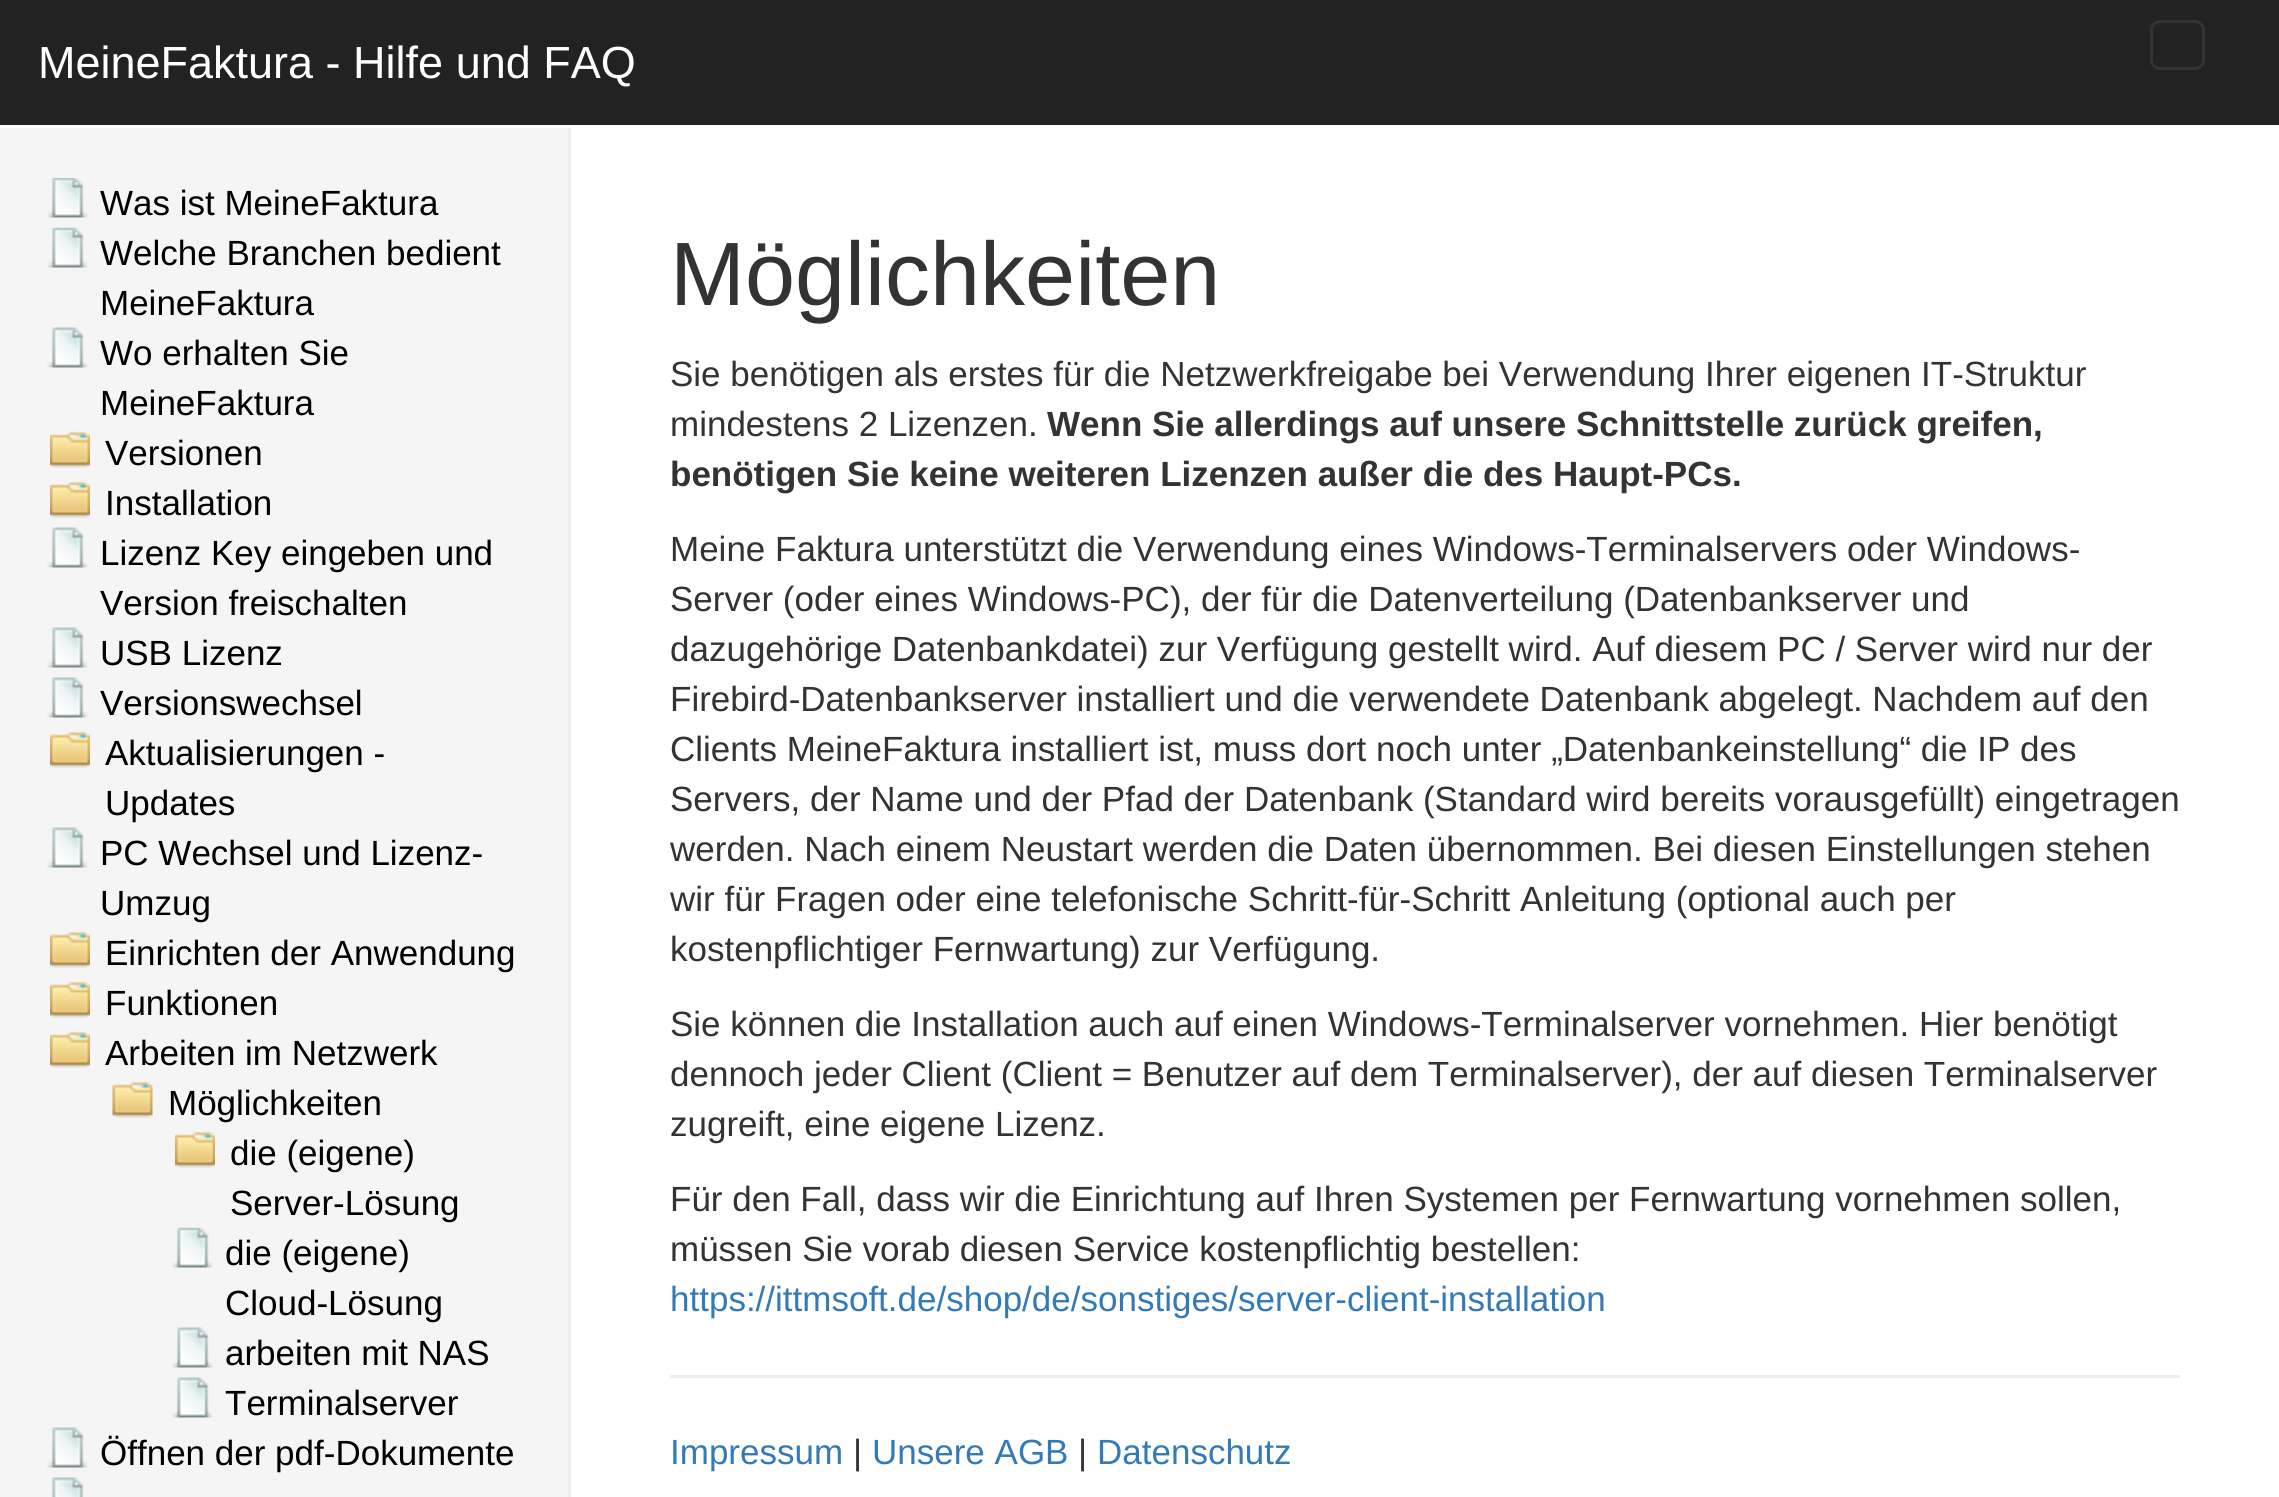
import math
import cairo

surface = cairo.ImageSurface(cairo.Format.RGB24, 2279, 1497)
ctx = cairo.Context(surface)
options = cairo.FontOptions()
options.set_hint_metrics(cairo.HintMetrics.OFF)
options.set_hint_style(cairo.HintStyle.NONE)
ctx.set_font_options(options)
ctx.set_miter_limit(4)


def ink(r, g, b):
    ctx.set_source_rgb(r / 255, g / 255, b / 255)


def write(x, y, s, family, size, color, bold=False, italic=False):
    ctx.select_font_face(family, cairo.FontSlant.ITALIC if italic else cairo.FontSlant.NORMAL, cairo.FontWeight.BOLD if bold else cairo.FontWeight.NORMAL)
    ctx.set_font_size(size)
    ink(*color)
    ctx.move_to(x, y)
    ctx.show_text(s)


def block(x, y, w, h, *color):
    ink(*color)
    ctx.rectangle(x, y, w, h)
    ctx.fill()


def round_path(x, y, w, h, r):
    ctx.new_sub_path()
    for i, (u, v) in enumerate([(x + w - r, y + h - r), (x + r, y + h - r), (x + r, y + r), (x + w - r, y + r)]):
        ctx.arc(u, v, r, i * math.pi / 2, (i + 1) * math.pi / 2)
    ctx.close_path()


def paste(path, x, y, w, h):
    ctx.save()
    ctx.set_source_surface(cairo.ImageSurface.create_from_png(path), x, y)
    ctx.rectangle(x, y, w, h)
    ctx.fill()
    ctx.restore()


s1 = dict(family="Liberation Sans", size=45, color=(255, 255, 255))
s2 = dict(family="Liberation Sans", size=35, color=(0, 0, 0))
s3 = dict(family="Liberation Sans", size=90, color=(51, 51, 51))
s4 = dict(family="Liberation Sans", size=35, color=(51, 51, 51))
s5 = dict(family="Liberation Sans", size=35, color=(51, 51, 51), bold=True)
s6 = dict(family="Liberation Sans", size=35, color=(51, 122, 183))

ink(255, 255, 255)
ctx.paint()
block(0, 0, 2279, 125, 34, 34, 34)
write(38, 78, "MeineFaktura - Hilfe und FAQ", **s1)
round_path(2151.5, 21.5, 52, 47, 8.5)
ink(51, 51, 51)
ctx.set_line_width(3)
ctx.stroke()
block(0, 128, 568, 1369, 245, 245, 245)
block(568, 128, 3, 1369, 238, 238, 238)
paste("pic1.png", 47, 178, 41, 40)
write(100, 215, "Was ist MeineFaktura", **s2)
paste("pic2.png", 48, 227, 40, 41)
write(100, 265, "Welche Branchen bedient", **s2)
write(100, 315, "MeineFaktura", **s2)
paste("pic3.png", 47, 327, 41, 41)
write(100, 365, "Wo erhalten Sie", **s2)
write(100, 415, "MeineFaktura", **s2)
paste("pic4.png", 50, 431, 40, 37)
write(105, 465, "Versionen", **s2)
paste("pic4.png", 50, 481, 40, 37)
write(105, 515, "Installation", **s2)
paste("pic3.png", 47, 527, 41, 41)
write(100, 565, "Lizenz Key eingeben und", **s2)
write(100, 615, "Version freischalten", **s2)
paste("pic3.png", 47, 627, 41, 41)
write(100, 665, "USB Lizenz", **s2)
paste("pic3.png", 47, 677, 41, 41)
write(100, 715, "Versionswechsel", **s2)
paste("pic4.png", 50, 731, 40, 37)
write(105, 765, "Aktualisierungen -", **s2)
write(105, 815, "Updates", **s2)
paste("pic3.png", 47, 827, 41, 41)
write(100, 865, "PC Wechsel und Lizenz-", **s2)
write(100, 915, "Umzug", **s2)
paste("pic4.png", 50, 931, 40, 37)
write(105, 965, "Einrichten der Anwendung", **s2)
paste("pic4.png", 50, 981, 40, 37)
write(105, 1015, "Funktionen", **s2)
paste("pic4.png", 50, 1031, 40, 37)
write(105, 1065, "Arbeiten im Netzwerk", **s2)
paste("pic5.png", 112, 1081, 41, 37)
write(168, 1115, "Möglichkeiten", **s2)
paste("pic6.png", 175, 1131, 40, 37)
write(230, 1165, "die (eigene)", **s2)
write(230, 1215, "Server-Lösung", **s2)
paste("pic7.png", 172, 1227, 41, 41)
write(225, 1265, "die (eigene)", **s2)
write(225, 1315, "Cloud-Lösung", **s2)
paste("pic8.png", 172, 1327, 41, 41)
write(225, 1365, "arbeiten mit NAS", **s2)
paste("pic3.png", 172, 1377, 41, 41)
write(225, 1415, "Terminalserver", **s2)
paste("pic3.png", 47, 1427, 41, 41)
write(100, 1465, "Öffnen der pdf-Dokumente", **s2)
paste("pic9.png", 51, 1477, 33, 20)
write(670, 305, "Möglichkeiten", **s3)
write(670, 386, "Sie benötigen als erstes für die Netzwerkfreigabe bei Verwendung Ihrer eigenen IT-Struktur", **s4)
write(670, 436, "mindestens 2 Lizenzen.", **s4)
write(1047, 436, "Wenn Sie allerdings auf unsere Schnittstelle zurück greifen,", **s5)
write(670, 486, "benötigen Sie keine weiteren Lizenzen außer die des Haupt-PCs.", **s5)
write(670, 561, "Meine Faktura unterstützt die Verwendung eines Windows-Terminalservers oder Windows-", **s4)
write(670, 611, "Server (oder eines Windows-PC), der für die Datenverteilung (Datenbankserver und", **s4)
write(670, 661, "dazugehörige Datenbankdatei) zur Verfügung gestellt wird. Auf diesem PC / Server wird nur der", **s4)
write(670, 711, "Firebird-Datenbankserver installiert und die verwendete Datenbank abgelegt. Nachdem auf den", **s4)
write(670, 761, "Clients MeineFaktura installiert ist, muss dort noch unter „Datenbankeinstellung“ die IP des", **s4)
write(670, 811, "Servers, der Name und der Pfad der Datenbank (Standard wird bereits vorausgefüllt) eingetragen", **s4)
write(670, 861, "werden. Nach einem Neustart werden die Daten übernommen. Bei diesen Einstellungen stehen", **s4)
write(670, 911, "wir für Fragen oder eine telefonische Schritt-für-Schritt Anleitung (optional auch per", **s4)
write(670, 961, "kostenpflichtiger Fernwartung) zur Verfügung.", **s4)
write(670, 1036, "Sie können die Installation auch auf einen Windows-Terminalserver vornehmen. Hier benötigt", **s4)
write(670, 1086, "dennoch jeder Client (Client = Benutzer auf dem Terminalserver), der auf diesen Terminalserver", **s4)
write(670, 1136, "zugreift, eine eigene Lizenz.", **s4)
write(670, 1211, "Für den Fall, dass wir die Einrichtung auf Ihren Systemen per Fernwartung vornehmen sollen,", **s4)
write(670, 1261, "müssen Sie vorab diesen Service kostenpflichtig bestellen:", **s4)
write(670, 1311, "https://ittmsoft.de/shop/de/sonstiges/server-client-installation", **s6)
block(670, 1375, 1510, 3, 238, 238, 238)
write(670, 1464, "Impressum", **s6)
write(853, 1464, "|", **s4)
write(872, 1464, "Unsere AGB", **s6)
write(1078, 1464, "|", **s4)
write(1097, 1464, "Datenschutz", **s6)
surface.write_to_png("screenshot.png")
